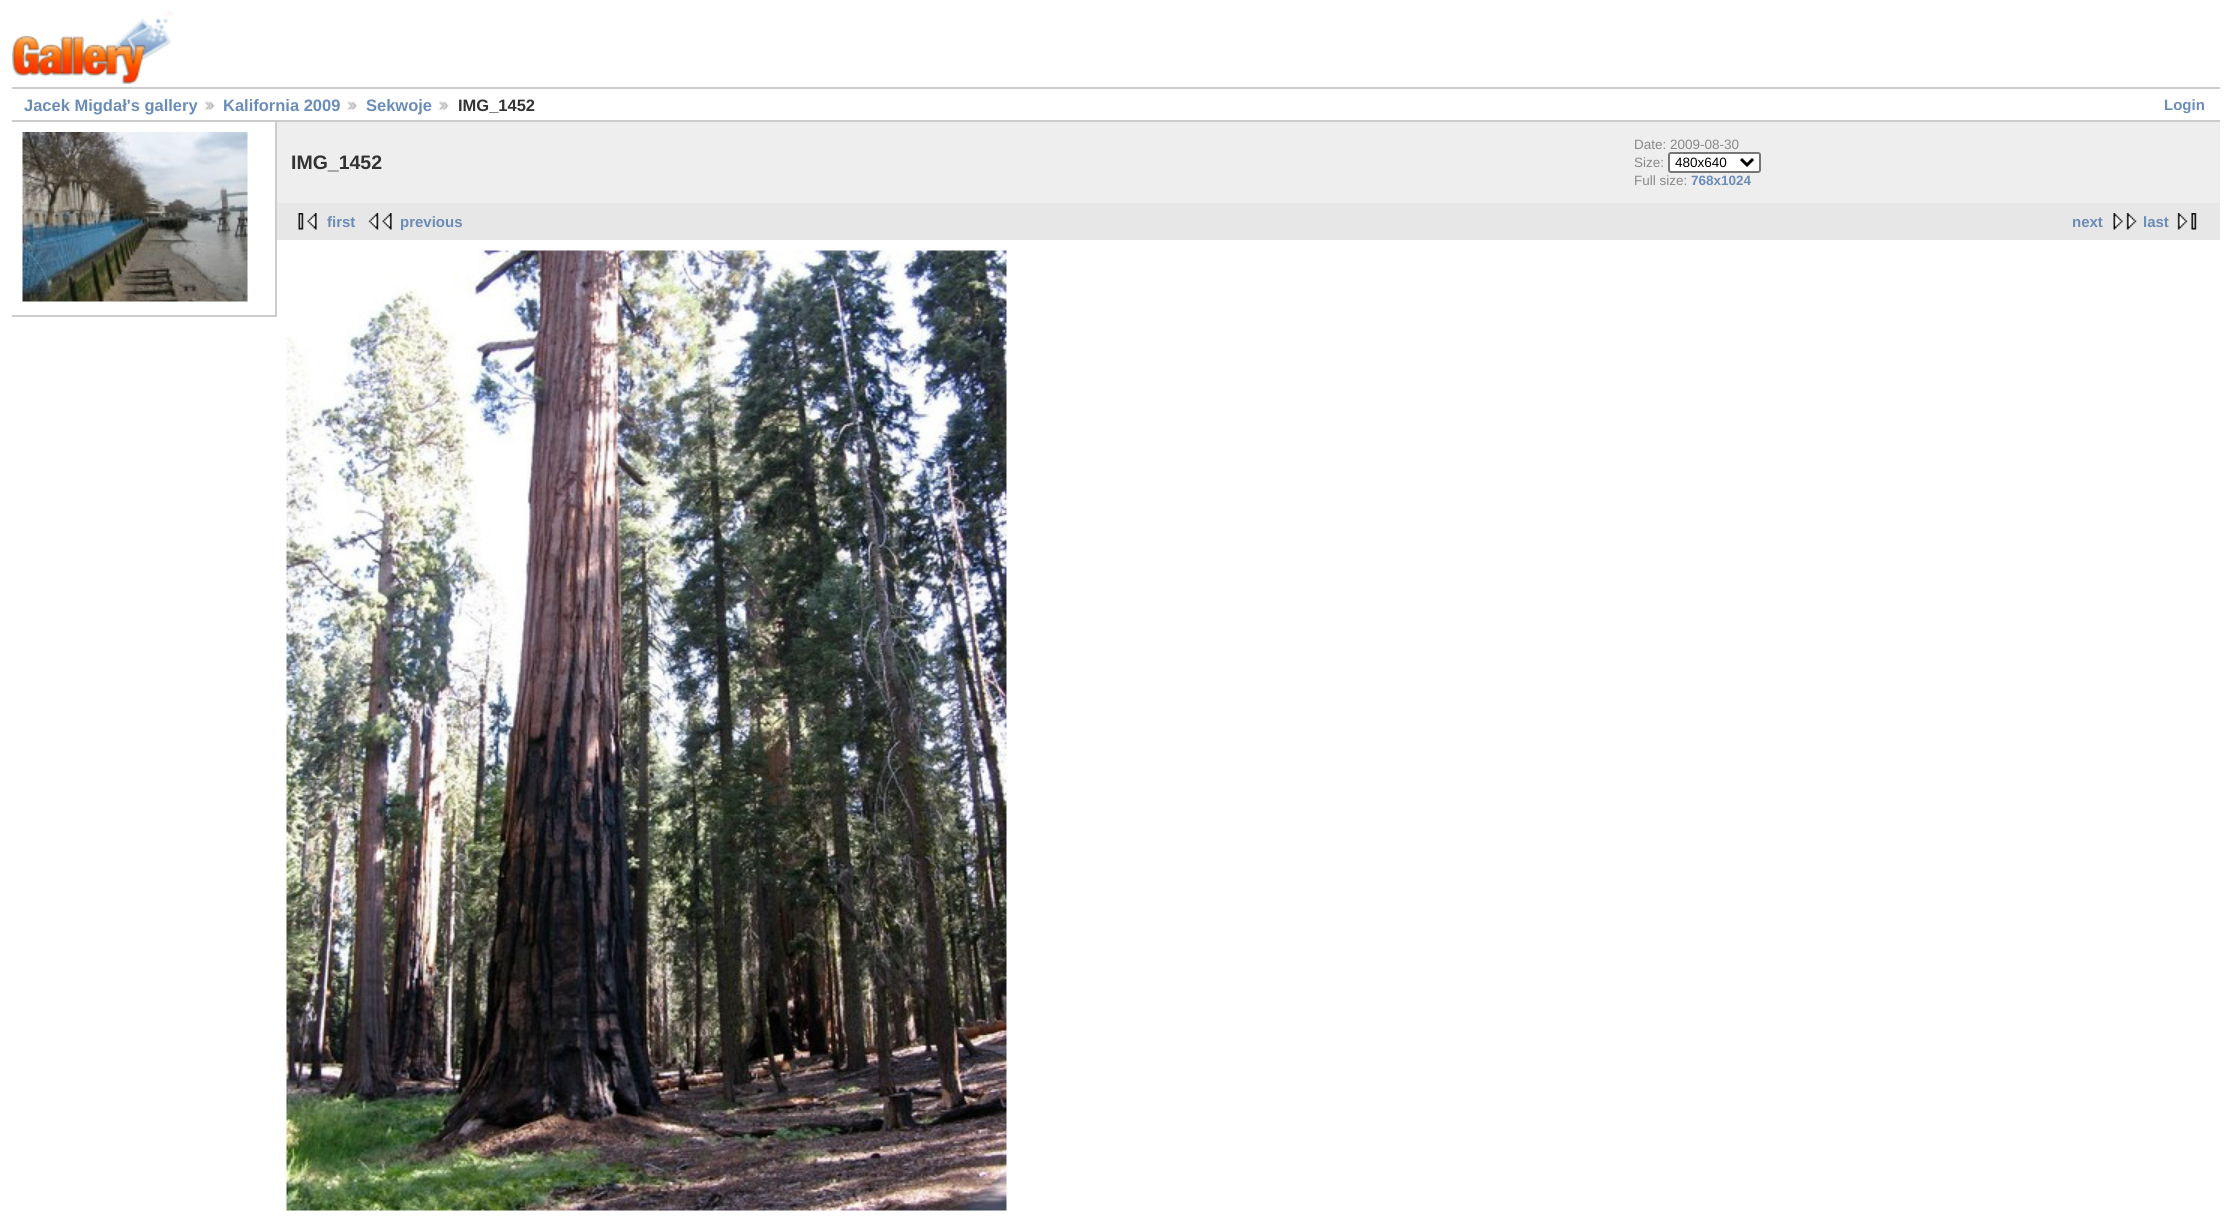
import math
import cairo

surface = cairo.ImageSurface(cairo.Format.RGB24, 2232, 1229)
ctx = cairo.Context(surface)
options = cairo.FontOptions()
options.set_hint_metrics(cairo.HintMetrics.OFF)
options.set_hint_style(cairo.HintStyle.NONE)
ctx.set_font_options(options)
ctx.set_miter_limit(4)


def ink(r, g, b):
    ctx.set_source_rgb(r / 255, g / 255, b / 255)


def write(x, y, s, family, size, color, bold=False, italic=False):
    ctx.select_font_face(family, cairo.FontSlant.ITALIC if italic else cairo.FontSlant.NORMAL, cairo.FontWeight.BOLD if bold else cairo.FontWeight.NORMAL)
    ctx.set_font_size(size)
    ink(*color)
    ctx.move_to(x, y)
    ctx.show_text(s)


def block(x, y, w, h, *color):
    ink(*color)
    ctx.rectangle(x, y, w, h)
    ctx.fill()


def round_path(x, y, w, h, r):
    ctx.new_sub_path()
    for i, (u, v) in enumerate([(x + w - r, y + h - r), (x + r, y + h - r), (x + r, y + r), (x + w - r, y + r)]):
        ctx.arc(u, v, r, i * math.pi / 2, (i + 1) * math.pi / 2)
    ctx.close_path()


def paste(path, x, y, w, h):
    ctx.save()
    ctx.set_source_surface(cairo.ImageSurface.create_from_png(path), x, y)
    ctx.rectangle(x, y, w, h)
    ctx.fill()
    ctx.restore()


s1 = dict(family="Liberation Sans", size=16.5, color=(107, 140, 183), bold=True)
s2 = dict(family="Liberation Sans", size=16.5, color=(51, 51, 51), bold=True)
s3 = dict(family="Liberation Sans", size=15, color=(107, 140, 183), bold=True)
s4 = dict(family="Liberation Sans", size=19.5, color=(51, 51, 51), bold=True)
s5 = dict(family="Liberation Sans", size=13.5, color=(136, 136, 136))
s6 = dict(family="Liberation Sans", size=13.5, color=(0, 0, 0))
s7 = dict(family="Liberation Sans", size=13.5, color=(107, 140, 183), bold=True)

ink(255, 255, 255)
ctx.paint()
paste("pic1.png", 12, 12, 161, 72)
block(12, 87, 2208, 2, 204, 204, 204)
block(12, 120, 2208, 2, 204, 204, 204)
write(24, 111, "Jacek Migdał's gallery", **s1)
paste("pic2.png", 205, 101, 10, 9)
write(223, 111, "Kalifornia 2009", **s1)
paste("pic3.png", 347, 101, 11, 9)
write(366, 111, "Sekwoje", **s1)
paste("pic4.png", 439, 101, 10, 9)
write(458, 111, "IMG_1452", **s2)
write(2164, 110, "Login", **s3)
block(275, 122, 2, 195, 204, 204, 204)
block(12, 315, 263, 2, 204, 204, 204)
paste("pic5.png", 22, 132, 226, 170)
block(277, 122, 1943, 81, 238, 238, 238)
write(291, 169, "IMG_1452", **s4)
write(1634, 149, "Date: 2009-08-30", **s5)
write(1634, 167, "Size:", **s5)
ink(255, 255, 255)
round_path(1669, 153, 91, 19, 2)
ctx.fill_preserve()
ink(118, 118, 118)
ctx.stroke()
ctx.new_path()
ctx.move_to(1741, 159)
ctx.line_to(1747, 165)
ctx.line_to(1753, 159)
ink(0, 0, 0)
ctx.set_line_width(3)
ctx.stroke()
write(1675, 167, "480x640", **s6)
write(1634, 185, "Full size:", **s5)
write(1691, 185, "768x1024", **s7)
block(277, 203, 1943, 37, 231, 231, 231)
paste("pic6.png", 298, 213, 19, 17)
write(327, 227, "first", **s3)
paste("pic7.png", 368, 213, 24, 17)
write(400, 227, "previous", **s3)
write(2072, 227, "next", **s3)
paste("pic8.png", 2113, 213, 24, 17)
write(2143, 227, "last", **s3)
paste("pic9.png", 2177, 213, 20, 17)
paste("pic10.png", 286, 250, 721, 961)
surface.write_to_png("screenshot.png")
